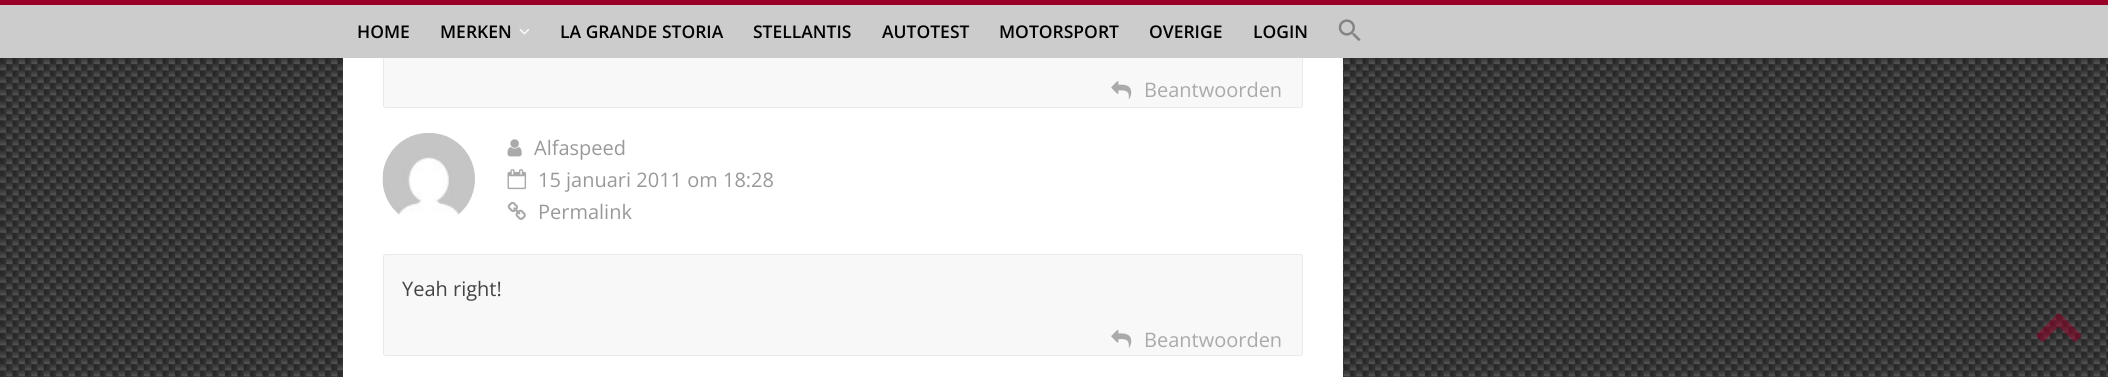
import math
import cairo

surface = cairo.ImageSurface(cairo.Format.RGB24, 2108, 377)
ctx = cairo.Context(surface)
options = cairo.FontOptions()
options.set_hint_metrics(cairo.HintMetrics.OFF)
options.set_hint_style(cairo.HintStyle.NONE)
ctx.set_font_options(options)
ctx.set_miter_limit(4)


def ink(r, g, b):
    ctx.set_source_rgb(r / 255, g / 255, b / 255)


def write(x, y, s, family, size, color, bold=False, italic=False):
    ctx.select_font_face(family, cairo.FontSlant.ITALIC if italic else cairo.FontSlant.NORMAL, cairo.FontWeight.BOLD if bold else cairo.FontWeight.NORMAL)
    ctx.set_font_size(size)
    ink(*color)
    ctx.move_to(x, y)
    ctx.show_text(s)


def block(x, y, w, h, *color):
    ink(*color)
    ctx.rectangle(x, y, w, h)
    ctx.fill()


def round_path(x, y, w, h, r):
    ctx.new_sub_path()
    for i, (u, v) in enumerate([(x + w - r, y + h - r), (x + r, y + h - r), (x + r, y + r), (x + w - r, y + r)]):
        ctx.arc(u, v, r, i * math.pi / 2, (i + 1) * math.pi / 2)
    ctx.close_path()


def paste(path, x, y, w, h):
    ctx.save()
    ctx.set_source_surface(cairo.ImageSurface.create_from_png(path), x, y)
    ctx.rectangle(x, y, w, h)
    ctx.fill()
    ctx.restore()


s1 = dict(family="Open Sans SemiBold", size=17.5, color=(0, 0, 0))
s2 = dict(family="Open Sans", size=20, color=(170, 170, 170))
s3 = dict(family="Open Sans", size=20, color=(153, 153, 153))
s4 = dict(family="Open Sans", size=20, color=(68, 68, 68))

ink(255, 255, 255)
ctx.paint()
paste("pic1.png", 0, 58, 2108, 319)
block(343, 58, 1000, 319, 255, 255, 255)
ink(248, 248, 248)
round_path(383.5, -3.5, 919, 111, 2)
ctx.fill_preserve()
ink(234, 234, 234)
ctx.set_line_width(1)
ctx.stroke()
block(0, 5, 2108, 53, 204, 204, 204)
block(0, 0, 2108, 5, 153, 0, 40)
write(357, 38, "HOME", **s1)
write(440, 38, "MERKEN", **s1)
paste("pic2.png", 519, 29, 11, 6)
write(560, 38, "LA GRANDE STORIA", **s1)
write(753, 38, "STELLANTIS", **s1)
write(882, 38, "AUTOTEST", **s1)
write(999, 38, "MOTORSPORT", **s1)
write(1149, 38, "OVERIGE", **s1)
write(1253, 38, "LOGIN", **s1)
paste("pic3.png", 1338, 19, 23, 22)
paste("pic4.png", 1111, 81, 21, 18)
write(1144, 97, "Beantwoorden", **s2)
paste("pic5.png", 382, 133, 93, 84)
paste("pic6.png", 507, 139, 15, 18)
write(534, 155, "Alfaspeed", **s3)
paste("pic7.png", 507, 169, 20, 21)
write(538, 187, "15 januari 2011 om 18:28", **s3)
paste("pic8.png", 507, 201, 19, 19)
write(538, 219, "Permalink", **s3)
ink(248, 248, 248)
round_path(383.5, 254.5, 919, 101, 2)
ctx.fill_preserve()
ink(234, 234, 234)
ctx.stroke()
write(402, 296, "Yeah right!", **s4)
paste("pic9.png", 1111, 329, 21, 19)
write(1144, 347, "Beantwoorden", **s2)
paste("pic10.png", 2036, 313, 46, 29)
surface.write_to_png("screenshot.png")
